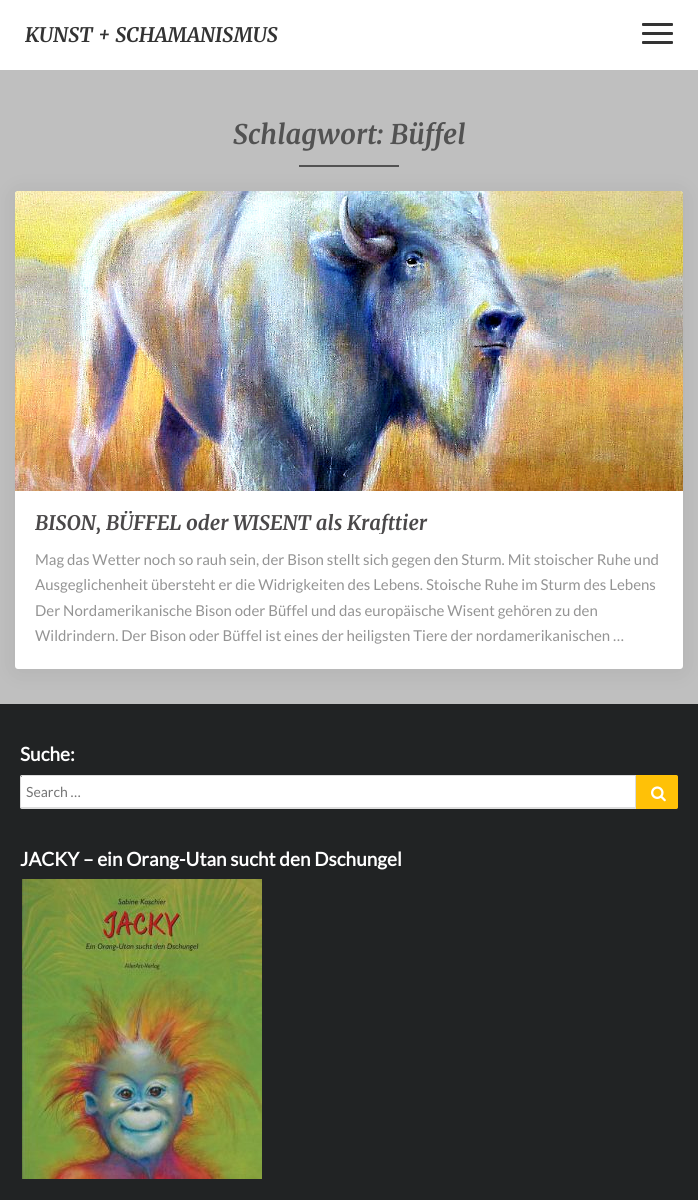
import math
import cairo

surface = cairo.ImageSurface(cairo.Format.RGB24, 698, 1200)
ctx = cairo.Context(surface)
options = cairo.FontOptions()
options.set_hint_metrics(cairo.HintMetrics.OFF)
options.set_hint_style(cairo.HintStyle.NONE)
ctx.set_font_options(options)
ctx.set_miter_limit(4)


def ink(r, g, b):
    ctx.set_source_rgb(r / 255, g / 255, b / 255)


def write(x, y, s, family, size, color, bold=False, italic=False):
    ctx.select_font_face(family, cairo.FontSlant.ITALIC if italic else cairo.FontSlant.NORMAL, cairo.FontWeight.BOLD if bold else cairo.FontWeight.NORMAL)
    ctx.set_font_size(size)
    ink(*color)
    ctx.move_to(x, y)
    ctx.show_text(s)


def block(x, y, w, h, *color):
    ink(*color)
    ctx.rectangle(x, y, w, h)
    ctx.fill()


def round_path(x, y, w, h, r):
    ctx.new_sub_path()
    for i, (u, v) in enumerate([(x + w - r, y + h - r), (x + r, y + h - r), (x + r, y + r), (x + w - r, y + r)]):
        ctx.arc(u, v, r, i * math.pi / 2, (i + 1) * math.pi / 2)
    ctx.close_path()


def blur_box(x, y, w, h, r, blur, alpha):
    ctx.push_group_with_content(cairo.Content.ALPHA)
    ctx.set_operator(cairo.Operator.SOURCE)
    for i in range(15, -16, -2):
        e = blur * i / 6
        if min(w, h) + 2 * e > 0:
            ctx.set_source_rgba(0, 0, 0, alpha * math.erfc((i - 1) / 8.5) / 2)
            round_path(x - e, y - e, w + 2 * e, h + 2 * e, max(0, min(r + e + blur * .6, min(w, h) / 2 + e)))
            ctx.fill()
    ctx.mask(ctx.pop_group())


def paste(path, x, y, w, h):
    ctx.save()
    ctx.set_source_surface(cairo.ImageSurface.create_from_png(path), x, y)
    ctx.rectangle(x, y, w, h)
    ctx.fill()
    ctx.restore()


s1 = dict(family="Merriweather", size=20, color=(51, 51, 51), bold=True, italic=True)
s2 = dict(family="Merriweather", size=27, color=(82, 82, 82), bold=True, italic=True)
s3 = dict(family="Merriweather", size=20, color=(74, 72, 73), bold=True, italic=True)
s4 = dict(family="Lato", size=15, color=(148, 148, 148))
s5 = dict(family="Lato", size=19, color=(255, 255, 255), bold=True)
s6 = dict(family="Lato", size=14, color=(117, 117, 117))

ink(191, 191, 191)
ctx.paint()
block(0, 0, 698, 70, 255, 255, 255)
write(25, 42, "KUNST + SCHAMANISMUS", **s1)
round_path(642, 23, 31, 3, 1)
ctx.fill()
round_path(642, 32, 31, 3, 1)
ctx.fill()
round_path(642, 41, 31, 3, 1)
ctx.fill()
write(233, 144, "Schlagwort: Büffel", **s2)
block(299, 165, 100, 2, 82, 82, 82)
block(0, 704, 698, 496, 33, 35, 36)
ink(0, 0, 0)
blur_box(15, 193, 668, 478, 3, 12.5, 0.08)
ink(255, 255, 255)
round_path(15, 191, 668, 478, 3)
ctx.fill()
paste("pic1.png", 15, 191, 668, 300)
ctx.save()
ctx.rectangle(35, 511, 628, 23)
ctx.clip()
write(35, 530, "BISON, BÜFFEL oder WISENT als Krafttier", **s3)
ctx.restore()
write(35, 565, "Mag das Wetter noch so rauh sein, der Bison stellt sich gegen den Sturm. Mit stoischer Ruhe und", **s4)
write(35, 590, "Ausgeglichenheit übersteht er die Widrigkeiten des Lebens. Stoische Ruhe im Sturm des Lebens", **s4)
write(35, 616, "Der Nordamerikanische Bison oder Büffel und das europäische Wisent gehören zu den", **s4)
write(35, 641, "Wildrindern. Der Bison oder Büffel ist eines der heiligsten Tiere der nordamerikanischen …", **s4)
write(20, 761, "Suche:", **s5)
ctx.new_path()
ctx.move_to(22, 776)
ctx.line_to(635, 776)
ctx.line_to(635, 807)
ctx.line_to(21, 807)
ctx.line_to(21, 777)
ctx.close_path()
ctx.fill()
ctx.new_path()
ctx.move_to(22, 775.5)
ctx.line_to(635.5, 775.5)
ctx.line_to(635.5, 808.5)
ctx.line_to(22, 808.5)
ctx.curve_to(21, 808.5, 20.5, 808, 20.5, 807)
ctx.line_to(20.5, 777)
ctx.curve_to(20.5, 776, 21, 775.5, 22, 775.5)
ctx.close_path()
ink(221, 221, 221)
ctx.set_line_width(1)
ctx.stroke()
block(21, 807, 615, 1, 221, 221, 221)
write(26, 797, "Search …", **s6)
ink(255, 193, 7)
ctx.new_path()
ctx.move_to(636.5, 775.5)
ctx.line_to(676, 775.5)
ctx.curve_to(677, 775.5, 677.5, 776, 677.5, 777)
ctx.line_to(677.5, 807)
ctx.curve_to(677.5, 808, 677, 808.5, 676, 808.5)
ctx.line_to(636.5, 808.5)
ctx.close_path()
ctx.fill_preserve()
ctx.stroke()
paste("pic2.png", 651, 786, 15, 16)
write(20, 866, "JACKY – ein Orang-Utan sucht den Dschungel", **s5)
paste("pic3.png", 22, 879, 240, 300)
surface.write_to_png("screenshot.png")
